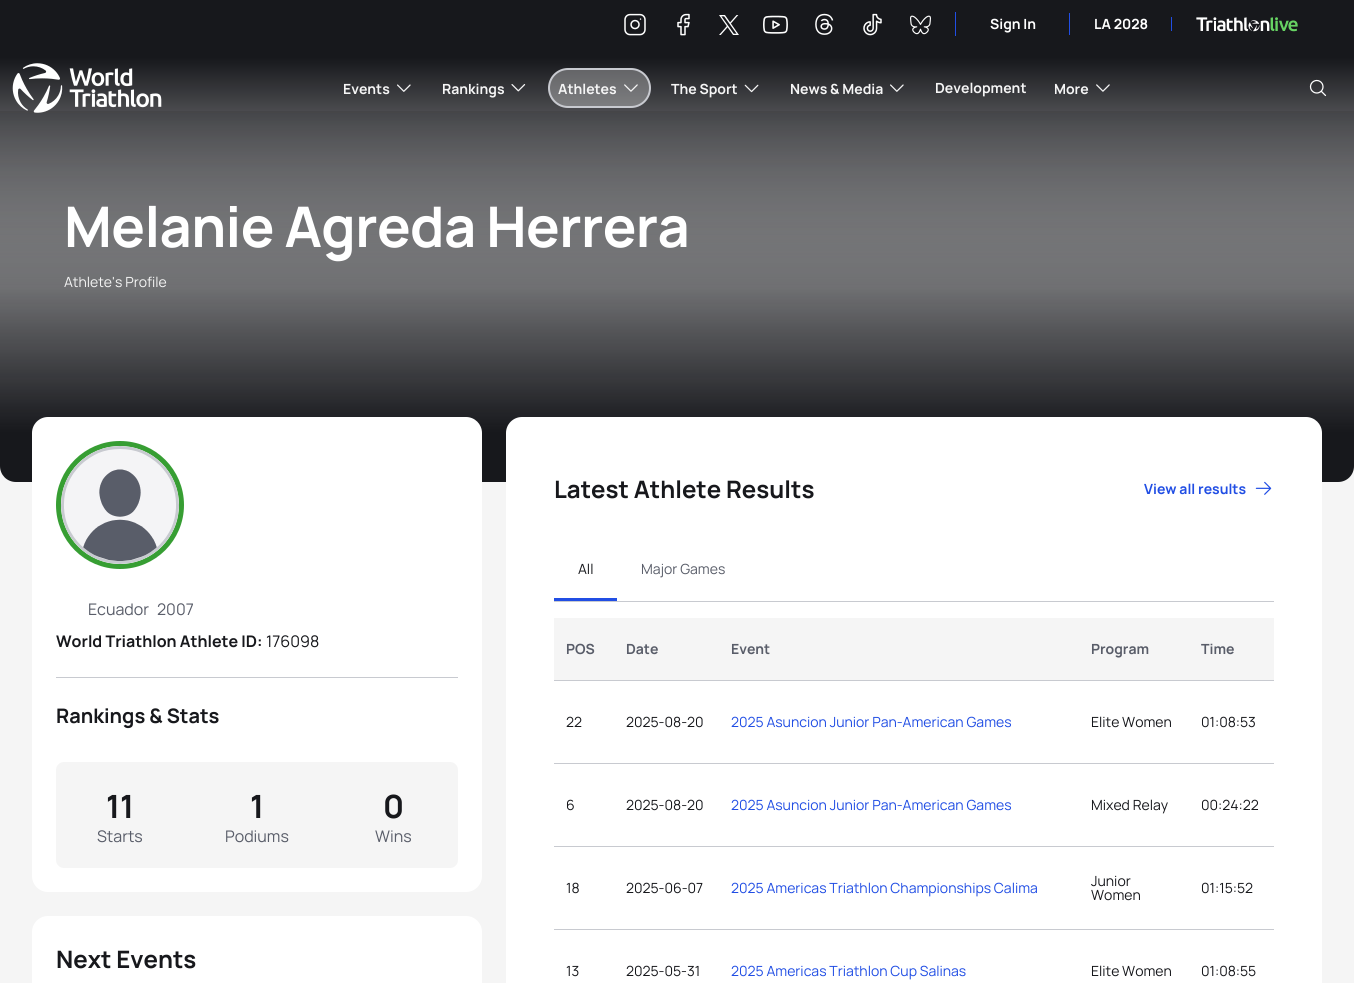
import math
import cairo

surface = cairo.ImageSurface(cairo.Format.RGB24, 1354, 983)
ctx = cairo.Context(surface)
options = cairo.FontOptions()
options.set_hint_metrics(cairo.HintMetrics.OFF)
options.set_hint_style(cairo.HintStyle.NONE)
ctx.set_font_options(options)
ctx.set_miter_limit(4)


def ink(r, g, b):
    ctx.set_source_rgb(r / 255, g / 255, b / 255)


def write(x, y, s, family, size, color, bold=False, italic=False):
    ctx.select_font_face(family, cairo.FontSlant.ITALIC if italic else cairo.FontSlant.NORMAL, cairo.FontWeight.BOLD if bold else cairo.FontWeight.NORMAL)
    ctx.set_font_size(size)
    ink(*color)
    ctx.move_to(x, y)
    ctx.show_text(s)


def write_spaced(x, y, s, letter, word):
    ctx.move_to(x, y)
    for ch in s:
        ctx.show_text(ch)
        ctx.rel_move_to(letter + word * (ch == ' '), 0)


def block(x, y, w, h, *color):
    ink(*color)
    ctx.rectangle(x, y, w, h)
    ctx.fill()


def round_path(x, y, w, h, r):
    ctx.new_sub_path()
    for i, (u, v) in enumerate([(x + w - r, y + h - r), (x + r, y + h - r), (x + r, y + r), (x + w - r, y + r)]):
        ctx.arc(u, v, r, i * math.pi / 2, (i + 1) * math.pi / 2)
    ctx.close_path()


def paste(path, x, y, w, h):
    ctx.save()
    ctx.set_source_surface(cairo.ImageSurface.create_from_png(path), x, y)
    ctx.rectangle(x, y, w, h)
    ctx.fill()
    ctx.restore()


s1 = dict(family="Manrope", size=14, color=(255, 255, 255), bold=True)
s2 = dict(family="Manrope", size=14, color=(245, 245, 245), bold=True)
s3 = dict(family="Manrope", size=14, color=(245, 245, 245))
s4 = dict(family="Manrope", size=16, color=(89, 93, 105))
s5 = dict(family="Manrope", size=16, color=(23, 24, 28), bold=True)
s6 = dict(family="Manrope", size=16, color=(23, 24, 28))
s7 = dict(family="Manrope", size=20, color=(23, 24, 28), bold=True)
s8 = dict(family="Manrope", size=32, color=(23, 24, 28), bold=True)
s9 = dict(family="Manrope", size=24, color=(23, 24, 28), bold=True)
s10 = dict(family="Manrope", size=14, color=(33, 78, 228), bold=True)
s11 = dict(family="Manrope", size=14, color=(23, 24, 28))
s12 = dict(family="Manrope", size=14, color=(89, 93, 105))
s13 = dict(family="Manrope", size=14, color=(89, 93, 105), bold=True)
s14 = dict(family="Manrope", size=14, color=(33, 78, 228))

ink(245, 245, 245)
ctx.paint()
gradient = cairo.LinearGradient(677, 289, 677, 0)
gradient.add_color_stop_rgba(0, 0.961, 0.961, 0.961, 1)
gradient.add_color_stop_rgba(0.8, 0.09, 0.094, 0.11, 1)
ctx.set_source(gradient)
ctx.rectangle(0, 0, 1354, 286)
ctx.fill()
paste("pic1.png", 624, 13, 22, 23)
paste("pic2.png", 677, 13, 13, 23)
paste("pic3.png", 719, 15, 20, 20)
paste("pic4.png", 763, 15, 25, 19)
paste("pic5.png", 815, 13, 19, 22)
paste("pic6.png", 863, 13, 19, 23)
paste("pic7.png", 910, 15, 21, 20)
block(955, 12, 1, 24, 33, 78, 228)
write(990, 29, "Sign In", **s1)
block(1069, 13, 1, 22, 33, 78, 228)
write(1094, 29, "LA 2028", **s1)
block(1171, 17, 1, 14, 33, 78, 228)
paste("pic8.png", 1196, 17, 102, 15)
gradient = cairo.LinearGradient(677, 68, 677, 482)
gradient.add_color_stop_rgba(0, 0.09, 0.094, 0.11, 0)
gradient.add_color_stop_rgba(0.88, 0.09, 0.094, 0.11, 1)
ctx.set_source(gradient)
ctx.new_path()
ctx.move_to(0, 111)
ctx.line_to(1354, 111)
ctx.line_to(1354, 466)
ctx.curve_to(1354, 475, 1347, 482, 1338, 482)
ctx.line_to(16, 482)
ctx.curve_to(7, 482, 0, 475, 0, 466)
ctx.close_path()
ctx.fill()
paste("pic9.png", 12, 63, 150, 50)
write(343, 94, "Events", **s2)
paste("pic10.png", 397, 84, 14, 8)
write(442, 94, "Rankings", **s2)
paste("pic11.png", 511, 84, 15, 8)
ctx.set_source_rgba(1, 1, 1, 0.3)
round_path(549, 69, 101, 38, 19)
ctx.fill_preserve()
ink(200, 202, 208)
ctx.stroke()
write(558, 94, "Athletes", **s2)
paste("pic12.png", 624, 84, 14, 8)
write(671, 94, "The Sport", **s2)
paste("pic13.png", 744, 84, 15, 9)
write(790, 94, "News & Media", **s2)
paste("pic14.png", 890, 84, 14, 8)
write(935, 93, "Development", **s2)
write(1054, 94, "More", **s2)
paste("pic15.png", 1096, 84, 14, 8)
paste("pic16.png", 1309, 79, 18, 18)
ctx.set_font_size(56)
ink(255, 255, 255)
write_spaced(64, 247, "Melanie Agreda Herrera", -0.6, 0)
write(64, 287, "Athlete's Profile", **s3)
ink(255, 255, 255)
round_path(32, 417, 450, 475, 16)
ctx.fill()
ctx.arc(120, 505, 61.5, 0, 2 * math.pi)
ink(55, 158, 51)
ctx.set_line_width(5)
ctx.stroke()
paste("pic17.png", 61, 446, 118, 118)
write(88, 615, "Ecuador", **s4)
write(157, 615, "2007", **s4)
write(56, 647, "World Triathlon Athlete ID:", **s5)
write(266, 647, "176098", **s6)
block(56, 677, 402, 1, 200, 202, 208)
write(56, 723, "Rankings & Stats", **s7)
ink(245, 245, 245)
round_path(56, 762, 402, 106, 8)
ctx.fill()
write(106, 818, "11", **s8)
write(97, 842, "Starts", **s4)
write(250, 818, "1", **s8)
write(225, 842, "Podiums", **s4)
write(383, 818, "0", **s8)
write(375, 842, "Wins", **s4)
ink(255, 255, 255)
round_path(506, 417, 816, 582, 16)
ctx.fill()
write(554, 498, "Latest Athlete Results", **s9)
write(1144, 494, "View all results", **s10)
paste("pic18.png", 1255, 481, 17, 14)
write(578, 574, "All", **s11)
block(554, 598, 63, 3, 33, 78, 228)
write(641, 574, "Major Games", **s12)
block(554, 601, 720, 1, 200, 202, 208)
block(554, 680, 720, 1, 200, 202, 208)
block(554, 618, 720, 62, 245, 245, 245)
write(566, 654, "POS", **s13)
write(626, 654, "Date", **s13)
write(731, 654, "Event", **s13)
write(1091, 654, "Program", **s13)
write(1201, 654, "Time", **s13)
block(554, 763, 720, 1, 200, 202, 208)
write(566, 727, "22", **s11)
write(626, 727, "2025-08-20", **s11)
write(731, 727, "2025 Asuncion Junior Pan-American Games", **s14)
write(1091, 727, "Elite Women", **s11)
write(1201, 727, "01:08:53", **s11)
block(554, 846, 720, 1, 200, 202, 208)
write(566, 810, "6", **s11)
write(626, 810, "2025-08-20", **s11)
write(731, 810, "2025 Asuncion Junior Pan-American Games", **s14)
write(1091, 810, "Mixed Relay", **s11)
write(1201, 810, "00:24:22", **s11)
block(554, 929, 720, 1, 200, 202, 208)
write(566, 893, "18", **s11)
write(626, 893, "2025-06-07", **s11)
write(731, 893, "2025 Americas Triathlon Championships Calima", **s14)
write(1091, 886, "Junior", **s11)
write(1091, 900, "Women", **s11)
write(1201, 893, "01:15:52", **s11)
write(566, 976, "13", **s11)
write(626, 976, "2025-05-31", **s11)
write(731, 976, "2025 Americas Triathlon Cup Salinas", **s14)
write(1091, 976, "Elite Women", **s11)
write(1201, 976, "01:08:55", **s11)
ink(255, 255, 255)
round_path(32, 916, 450, 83, 16)
ctx.fill()
write(56, 968, "Next Events", **s9)
surface.write_to_png("screenshot.png")
